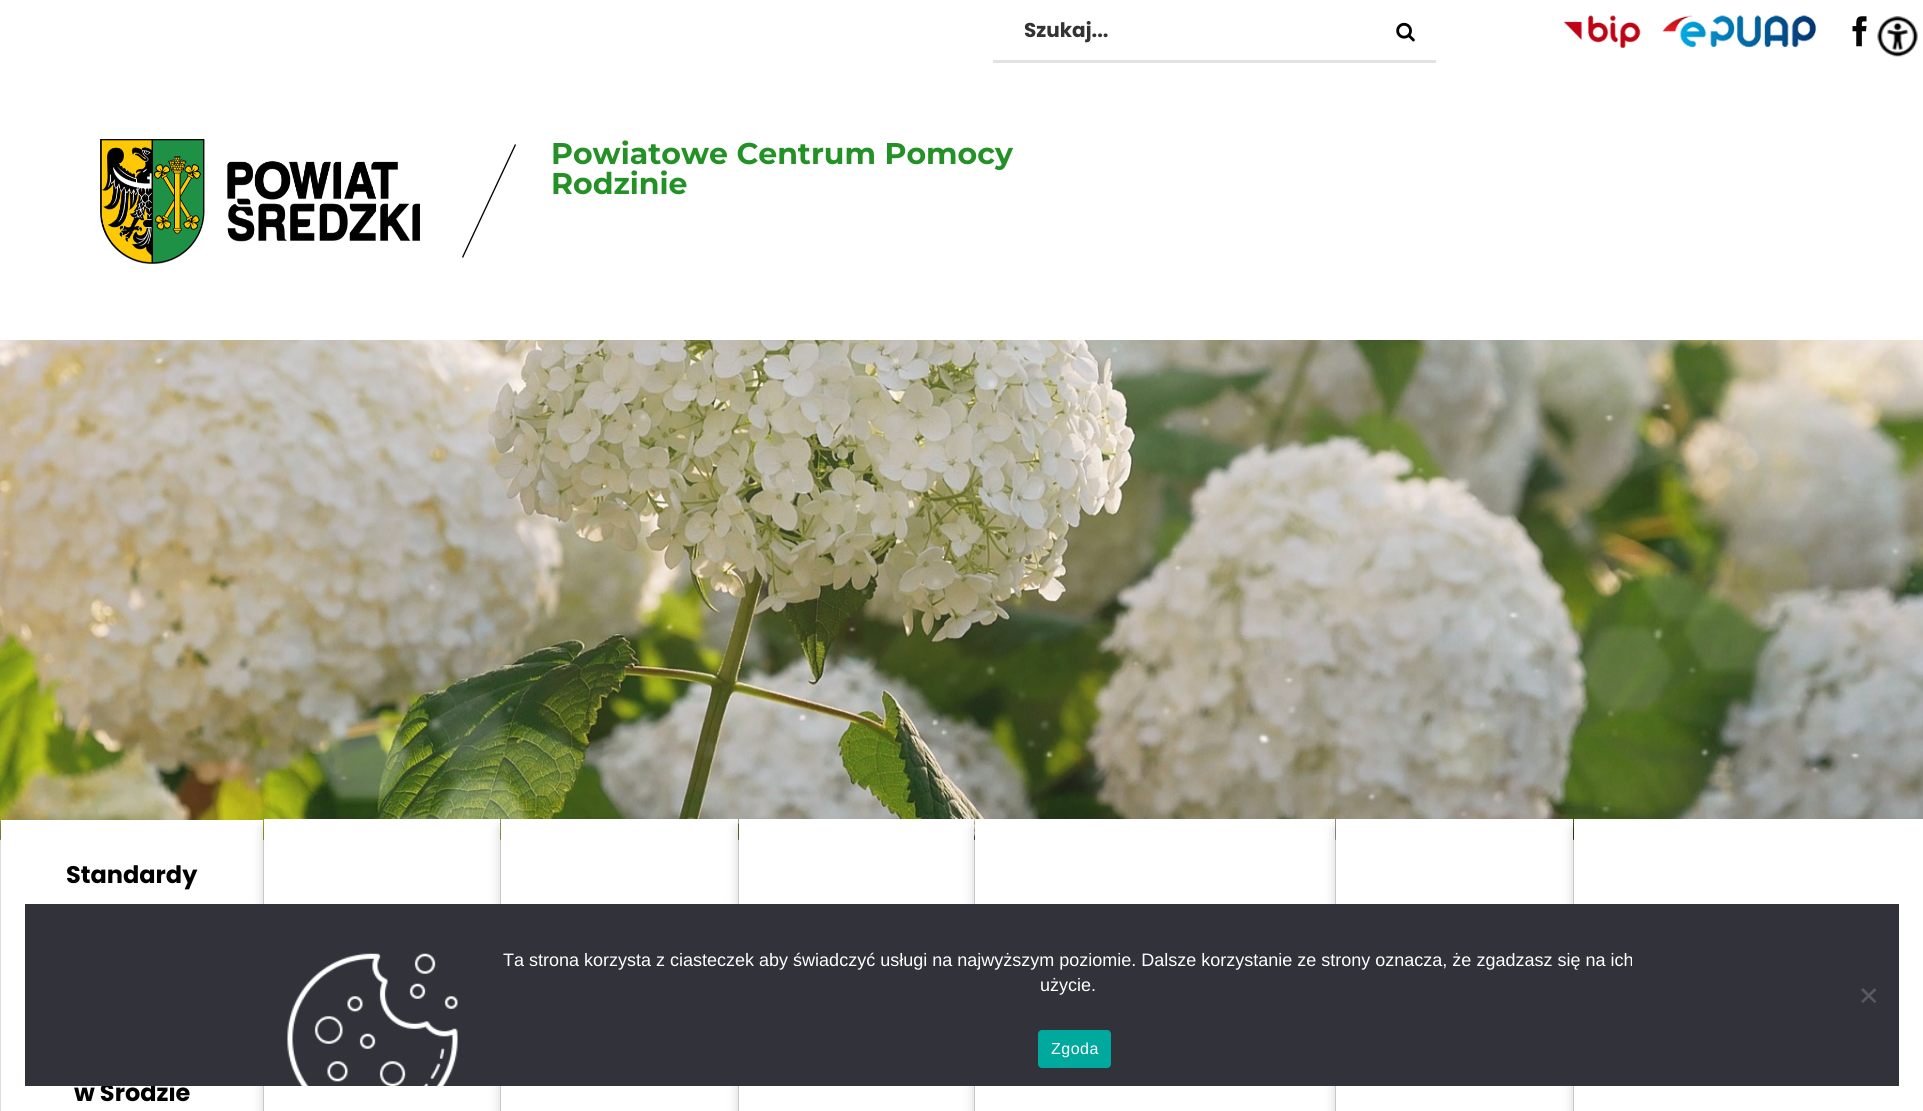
import math
import cairo

surface = cairo.ImageSurface(cairo.Format.RGB24, 1923, 1111)
ctx = cairo.Context(surface)
options = cairo.FontOptions()
options.set_hint_metrics(cairo.HintMetrics.OFF)
options.set_hint_style(cairo.HintStyle.NONE)
ctx.set_font_options(options)
ctx.set_miter_limit(4)


def ink(r, g, b):
    ctx.set_source_rgb(r / 255, g / 255, b / 255)


def write(x, y, s, family, size, color, bold=False, italic=False):
    ctx.select_font_face(family, cairo.FontSlant.ITALIC if italic else cairo.FontSlant.NORMAL, cairo.FontWeight.BOLD if bold else cairo.FontWeight.NORMAL)
    ctx.set_font_size(size)
    ink(*color)
    ctx.move_to(x, y)
    ctx.show_text(s)


def write_spaced(x, y, s, letter, word):
    ctx.move_to(x, y)
    for ch in s:
        ctx.show_text(ch)
        ctx.rel_move_to(letter + word * (ch == ' '), 0)


def block(x, y, w, h, *color):
    ink(*color)
    ctx.rectangle(x, y, w, h)
    ctx.fill()


def round_path(x, y, w, h, r):
    ctx.new_sub_path()
    for i, (u, v) in enumerate([(x + w - r, y + h - r), (x + r, y + h - r), (x + r, y + r), (x + w - r, y + r)]):
        ctx.arc(u, v, r, i * math.pi / 2, (i + 1) * math.pi / 2)
    ctx.close_path()


def blur_box(x, y, w, h, r, blur, alpha):
    ctx.push_group_with_content(cairo.Content.ALPHA)
    ctx.set_operator(cairo.Operator.SOURCE)
    for i in range(15, -16, -2):
        e = blur * i / 6
        if min(w, h) + 2 * e > 0:
            ctx.set_source_rgba(0, 0, 0, alpha * math.erfc((i - 1) / 8.5) / 2)
            round_path(x - e, y - e, w + 2 * e, h + 2 * e, max(0, min(r + e + blur * .6, min(w, h) / 2 + e)))
            ctx.fill()
    ctx.mask(ctx.pop_group())


def paste(path, x, y, w, h):
    ctx.save()
    ctx.set_source_surface(cairo.ImageSurface.create_from_png(path), x, y)
    ctx.rectangle(x, y, w, h)
    ctx.fill()
    ctx.restore()


s1 = dict(family="Poppins", size=20, color=(51, 51, 51), bold=True)
s2 = dict(family="Montserrat Thin", size=30, color=(35, 145, 37))
s3 = dict(family="Poppins", size=24, color=(0, 0, 0), bold=True)
s4 = dict(family="Liberation Sans", size=18, color=(255, 255, 255))

ink(255, 255, 255)
ctx.paint()
block(993, 60, 443, 3, 226, 226, 226)
write(1024, 37, "Szukaj...", **s1)
paste("pic1.png", 1396, 22, 19, 20)
paste("pic2.png", 1563, 15, 78, 33)
paste("pic3.png", 1662, 15, 154, 33)
paste("pic4.png", 1852, 16, 15, 31)
paste("pic5.png", 100, 139, 320, 125)
ink(0, 0, 0)
ctx.new_path()
ctx.move_to(515, 144)
ctx.line_to(516, 145)
ctx.line_to(463, 258)
ctx.line_to(462, 257)
ctx.close_path()
ctx.fill()
write(551, 164, "Powiatowe Centrum Pomocy", **s2)
write(551, 194, "Rodzinie", **s2)
paste("pic6.png", 0, 340, 1923, 500)
ink(0, 0, 0)
blur_box(0, 828, 264, 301, 0, 6, 0.2)
ctx.rectangle(0.5, 840.5, 263, 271)
ink(221, 221, 221)
ctx.set_line_width(1)
ctx.stroke()
block(1, 820, 262, 291, 255, 255, 255)
write(66, 883, "Standardy", **s3)
write(74, 1101, "w Środzie", **s3)
ink(0, 0, 0)
blur_box(264, 828, 237, 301, 0, 6, 0.2)
block(500, 840, 1, 271, 221, 221, 221)
block(264, 819, 236, 292, 255, 255, 255)
ink(0, 0, 0)
blur_box(501, 828, 238, 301, 0, 6, 0.2)
block(738, 840, 1, 271, 221, 221, 221)
block(501, 819, 237, 292, 255, 255, 255)
ink(0, 0, 0)
blur_box(739, 828, 236, 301, 0, 6, 0.2)
block(974, 840, 1, 271, 221, 221, 221)
block(739, 819, 235, 292, 255, 255, 255)
ink(0, 0, 0)
blur_box(975, 828, 361, 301, 0, 6, 0.2)
block(1335, 840, 1, 271, 221, 221, 221)
block(975, 819, 360, 292, 255, 255, 255)
ink(0, 0, 0)
blur_box(1336, 828, 238, 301, 0, 6, 0.2)
block(1573, 840, 1, 271, 221, 221, 221)
block(1336, 819, 237, 292, 255, 255, 255)
ink(0, 0, 0)
blur_box(1574, 828, 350, 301, 0, 6, 0.2)
block(1574, 819, 349, 292, 255, 255, 255)
paste("pic7.png", 1877, 16, 41, 41)
block(25, 904, 1874, 182, 50, 50, 58)
paste("pic8.png", 287, 953, 171, 133)
write(503, 966, "Ta strona korzysta z ciasteczek aby świadczyć usługi na najwyższym poziomie. Dalsze korzystanie ze strony oznacza, że zgadzasz się na ich", **s4)
write(1040, 991, "użycie.", **s4)
ink(89, 89, 93)
ctx.new_path()
ctx.move_to(1874.5, 988)
ctx.line_to(1876.5, 990)
ctx.line_to(1863, 1003)
ctx.line_to(1861, 1001.5)
ctx.close_path()
ctx.fill()
ctx.new_path()
ctx.move_to(1861, 990)
ctx.line_to(1863, 988)
ctx.line_to(1876.5, 1001.5)
ctx.line_to(1874.5, 1003)
ctx.close_path()
ctx.fill()
ink(0, 169, 157)
round_path(1038, 1030, 73, 38, 4)
ctx.fill()
ctx.set_font_size(16)
ink(255, 255, 255)
write_spaced(1051, 1054, "Zgoda", 0.5, 0)
surface.write_to_png("screenshot.png")
